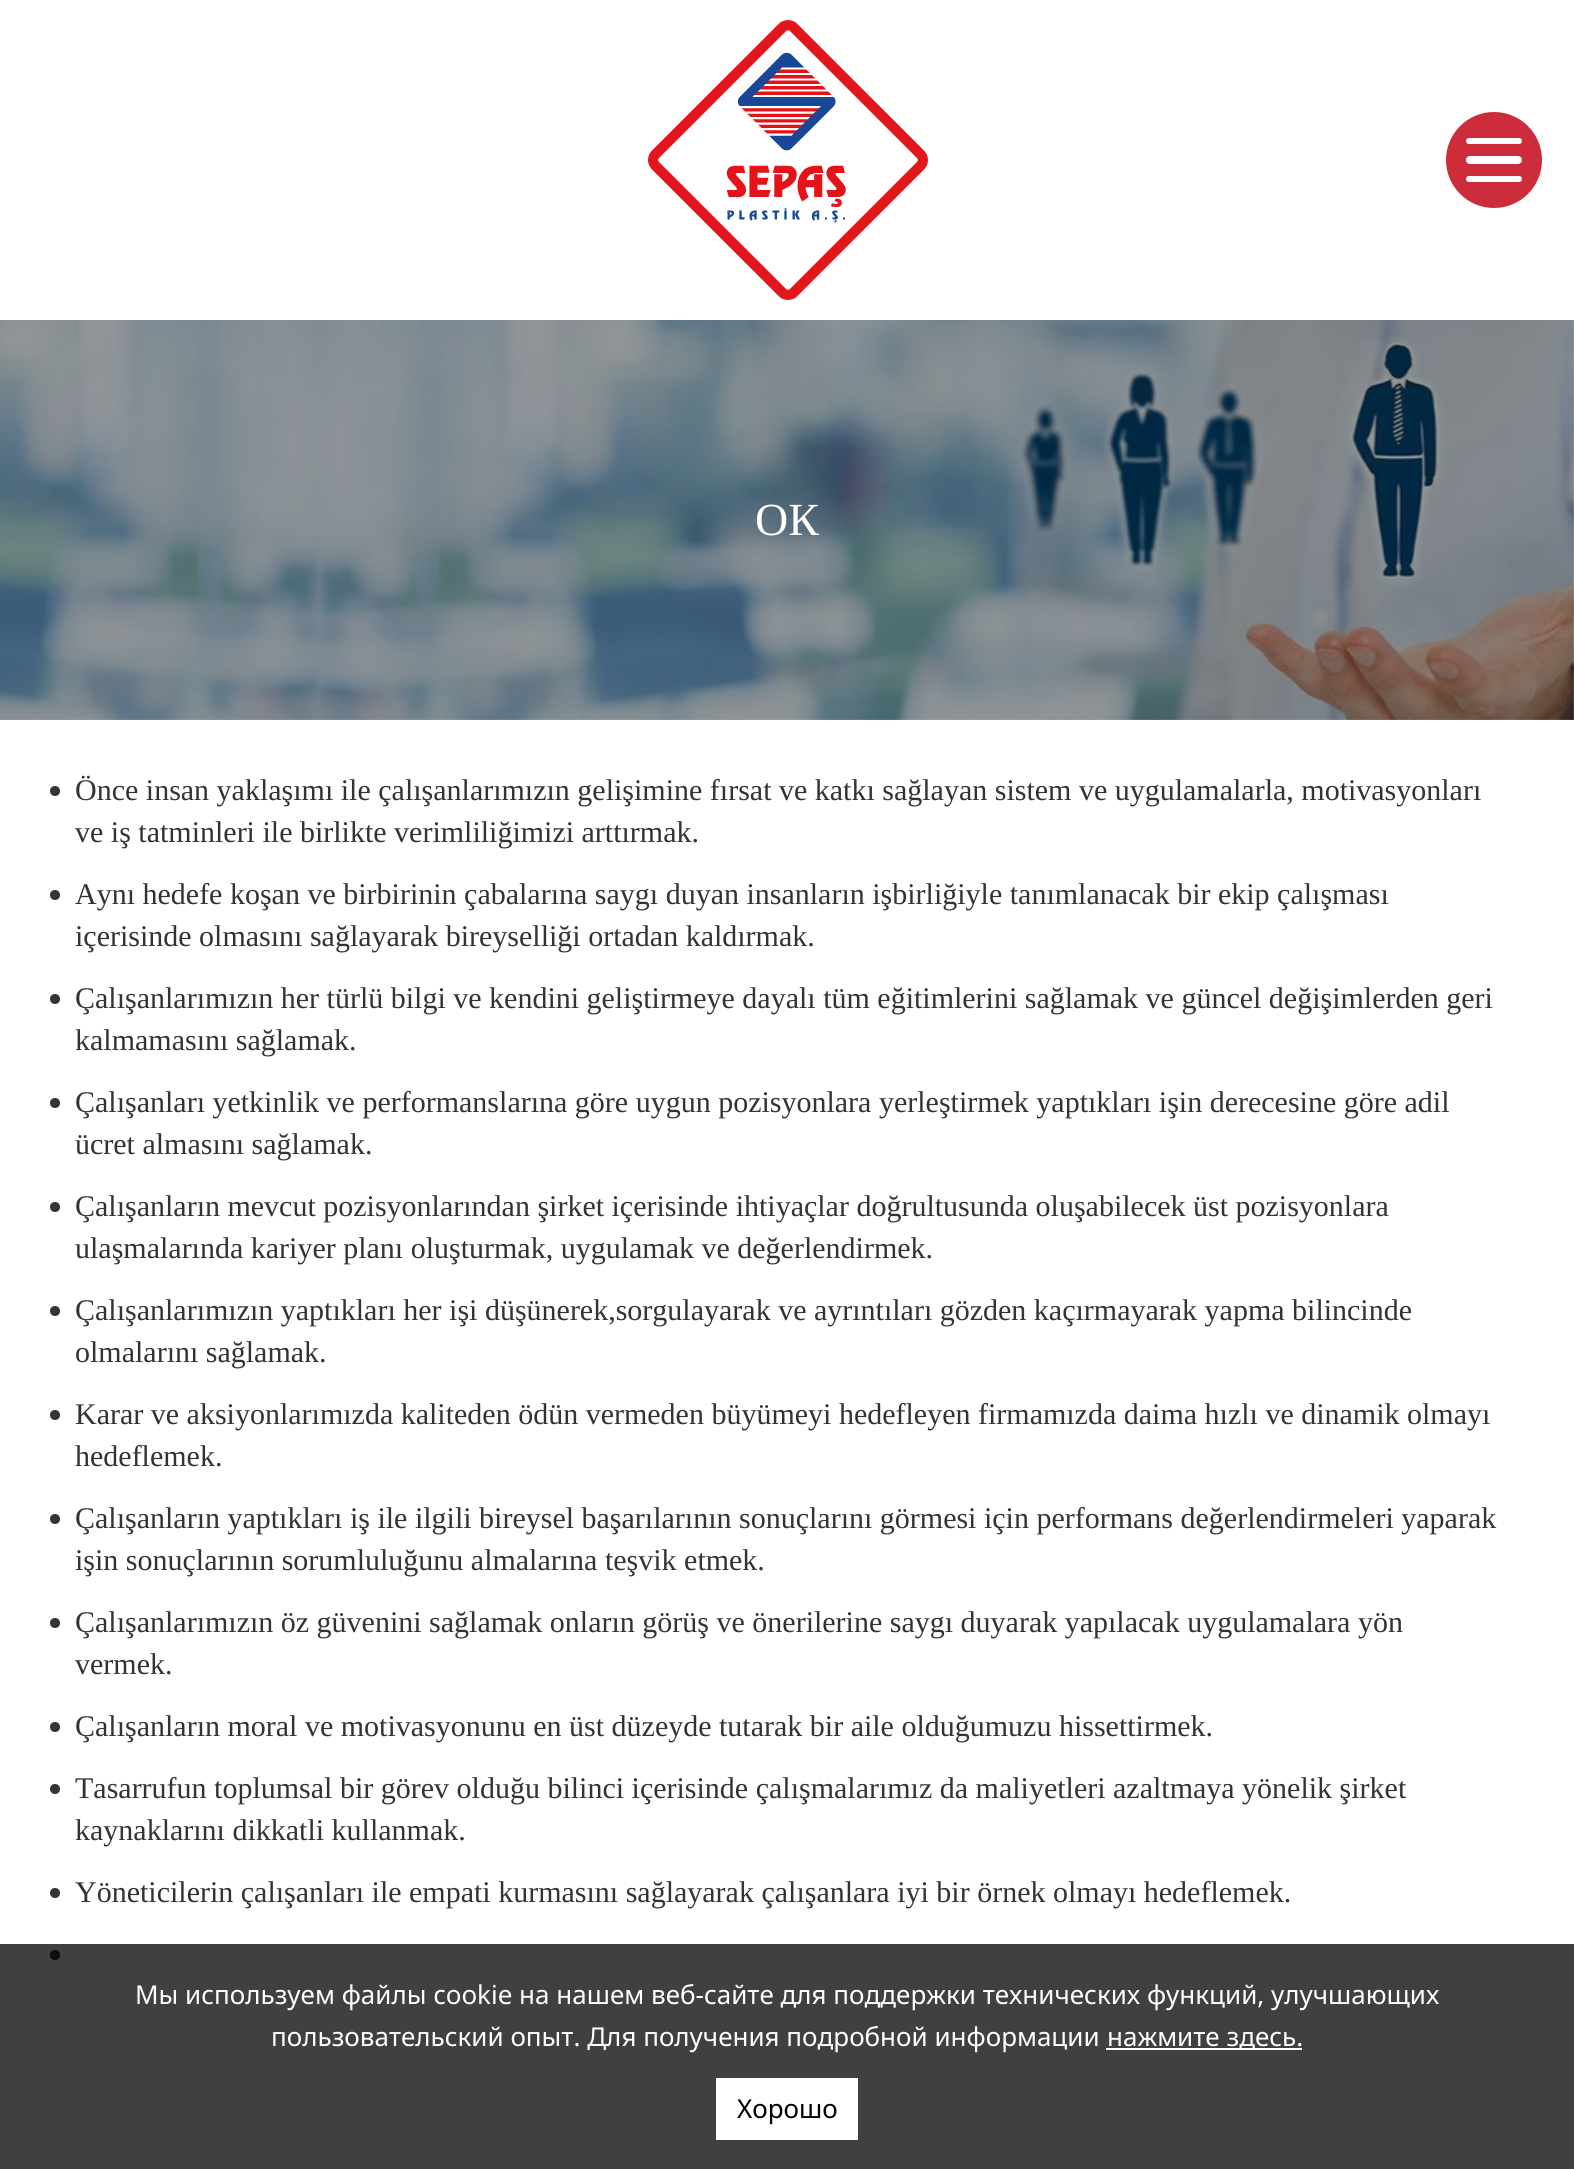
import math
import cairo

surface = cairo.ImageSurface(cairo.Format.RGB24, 1574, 2169)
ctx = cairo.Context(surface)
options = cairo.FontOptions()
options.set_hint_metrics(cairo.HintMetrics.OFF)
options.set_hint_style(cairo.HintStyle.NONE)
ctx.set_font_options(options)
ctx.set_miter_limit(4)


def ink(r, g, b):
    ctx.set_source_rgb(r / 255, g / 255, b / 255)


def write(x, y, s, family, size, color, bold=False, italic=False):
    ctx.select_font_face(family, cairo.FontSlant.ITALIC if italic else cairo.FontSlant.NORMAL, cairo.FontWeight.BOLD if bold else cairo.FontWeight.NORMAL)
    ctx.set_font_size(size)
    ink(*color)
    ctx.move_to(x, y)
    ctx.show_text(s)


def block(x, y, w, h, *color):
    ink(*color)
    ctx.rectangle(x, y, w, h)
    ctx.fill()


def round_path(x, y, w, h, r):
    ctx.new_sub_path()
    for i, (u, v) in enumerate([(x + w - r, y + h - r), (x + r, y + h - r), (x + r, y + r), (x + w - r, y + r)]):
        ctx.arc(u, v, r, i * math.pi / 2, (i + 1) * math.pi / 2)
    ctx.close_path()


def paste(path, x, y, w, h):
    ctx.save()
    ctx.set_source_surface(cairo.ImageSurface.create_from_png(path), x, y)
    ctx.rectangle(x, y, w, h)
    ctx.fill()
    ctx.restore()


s1 = dict(family="Liberation Serif", size=46, color=(255, 255, 255))
s2 = dict(family="Liberation Serif", size=30, color=(51, 51, 51))
s3 = dict(family="Noto Sans", size=26, color=(255, 255, 255))
s4 = dict(family="Noto Sans", size=26, color=(0, 0, 0))

ink(255, 255, 255)
ctx.paint()
paste("pic1.png", 648, 20, 280, 280)
ink(205, 45, 59)
ctx.arc(1494, 160, 48, 0, 2 * math.pi)
ctx.fill()
ink(255, 255, 255)
round_path(1466, 138, 56, 6, 3)
ctx.fill()
round_path(1466, 156, 56, 8, 4)
ctx.fill()
round_path(1466, 176, 56, 6, 3)
ctx.fill()
paste("pic2.png", 0, 320, 1574, 400)
write(755, 535, "ОК", **s1)
ink(51, 51, 51)
ctx.new_path()
ctx.arc(55, 791, 5, 0, 2 * math.pi)
ctx.fill()
write(75, 800, "Önce insan yaklaşımı ile çalışanlarımızın gelişimine fırsat ve katkı sağlayan sistem ve uygulamalarla, motivasyonları", **s2)
write(75, 842, "ve iş tatminleri ile birlikte verimliliğimizi arttırmak.", **s2)
ctx.new_path()
ctx.arc(55, 895, 5, 0, 2 * math.pi)
ctx.fill()
write(75, 904, "Aynı hedefe koşan ve birbirinin çabalarına saygı duyan insanların işbirliğiyle tanımlanacak bir ekip çalışması", **s2)
write(75, 946, "içerisinde olmasını sağlayarak bireyselliği ortadan kaldırmak.", **s2)
ctx.new_path()
ctx.arc(55, 999, 5, 0, 2 * math.pi)
ctx.fill()
write(75, 1008, "Çalışanlarımızın her türlü bilgi ve kendini geliştirmeye dayalı tüm eğitimlerini sağlamak ve güncel değişimlerden geri", **s2)
write(75, 1050, "kalmamasını sağlamak.", **s2)
ctx.new_path()
ctx.arc(55, 1103, 5, 0, 2 * math.pi)
ctx.fill()
write(75, 1112, "Çalışanları yetkinlik ve performanslarına göre uygun pozisyonlara yerleştirmek yaptıkları işin derecesine göre adil", **s2)
write(75, 1154, "ücret almasını sağlamak.", **s2)
ctx.new_path()
ctx.arc(55, 1207, 5, 0, 2 * math.pi)
ctx.fill()
write(75, 1216, "Çalışanların mevcut pozisyonlarından şirket içerisinde ihtiyaçlar doğrultusunda oluşabilecek üst pozisyonlara", **s2)
write(75, 1258, "ulaşmalarında kariyer planı oluşturmak, uygulamak ve değerlendirmek.", **s2)
ctx.new_path()
ctx.arc(55, 1311, 5, 0, 2 * math.pi)
ctx.fill()
write(75, 1320, "Çalışanlarımızın yaptıkları her işi düşünerek,sorgulayarak ve ayrıntıları gözden kaçırmayarak yapma bilincinde", **s2)
write(75, 1362, "olmalarını sağlamak.", **s2)
ctx.new_path()
ctx.arc(55, 1415, 5, 0, 2 * math.pi)
ctx.fill()
write(75, 1424, "Karar ve aksiyonlarımızda kaliteden ödün vermeden büyümeyi hedefleyen firmamızda daima hızlı ve dinamik olmayı", **s2)
write(75, 1466, "hedeflemek.", **s2)
ctx.new_path()
ctx.arc(55, 1519, 5, 0, 2 * math.pi)
ctx.fill()
write(75, 1528, "Çalışanların yaptıkları iş ile ilgili bireysel başarılarının sonuçlarını görmesi için performans değerlendirmeleri yaparak", **s2)
write(75, 1570, "işin sonuçlarının sorumluluğunu almalarına teşvik etmek.", **s2)
ctx.new_path()
ctx.arc(55, 1623, 5, 0, 2 * math.pi)
ctx.fill()
write(75, 1632, "Çalışanlarımızın öz güvenini sağlamak onların görüş ve önerilerine saygı duyarak yapılacak uygulamalara yön", **s2)
write(75, 1674, "vermek.", **s2)
ctx.new_path()
ctx.arc(55, 1727, 5, 0, 2 * math.pi)
ctx.fill()
write(75, 1736, "Çalışanların moral ve motivasyonunu en üst düzeyde tutarak bir aile olduğumuzu hissettirmek.", **s2)
ctx.new_path()
ctx.arc(55, 1789, 5, 0, 2 * math.pi)
ctx.fill()
write(75, 1798, "Tasarrufun toplumsal bir görev olduğu bilinci içerisinde çalışmalarımız da maliyetleri azaltmaya yönelik şirket", **s2)
write(75, 1840, "kaynaklarını dikkatli kullanmak.", **s2)
ctx.new_path()
ctx.arc(55, 1893, 5, 0, 2 * math.pi)
ctx.fill()
write(75, 1902, "Yöneticilerin çalışanları ile empati kurmasını sağlayarak çalışanlara iyi bir örnek olmayı hedeflemek.", **s2)
ctx.new_path()
ctx.arc(55, 1955, 5, 0, 2 * math.pi)
ctx.fill()
ctx.set_source_rgba(0, 0, 0, 0.75)
ctx.rectangle(0, 1944, 1574, 225)
ctx.fill()
write(135, 2004, "Мы используем файлы cookie на нашем веб-сайте для поддержки технических функций, улучшающих", **s3)
write(271, 2046, "пользовательский опыт. Для получения подробной информации", **s3)
block(1106, 2048, 196, 2, 255, 255, 255)
write(1107, 2046, "нажмите здесь.", **s3)
block(716, 2078, 142, 62, 255, 255, 255)
write(737, 2118, "Хорошо", **s4)
surface.write_to_png("screenshot.png")
